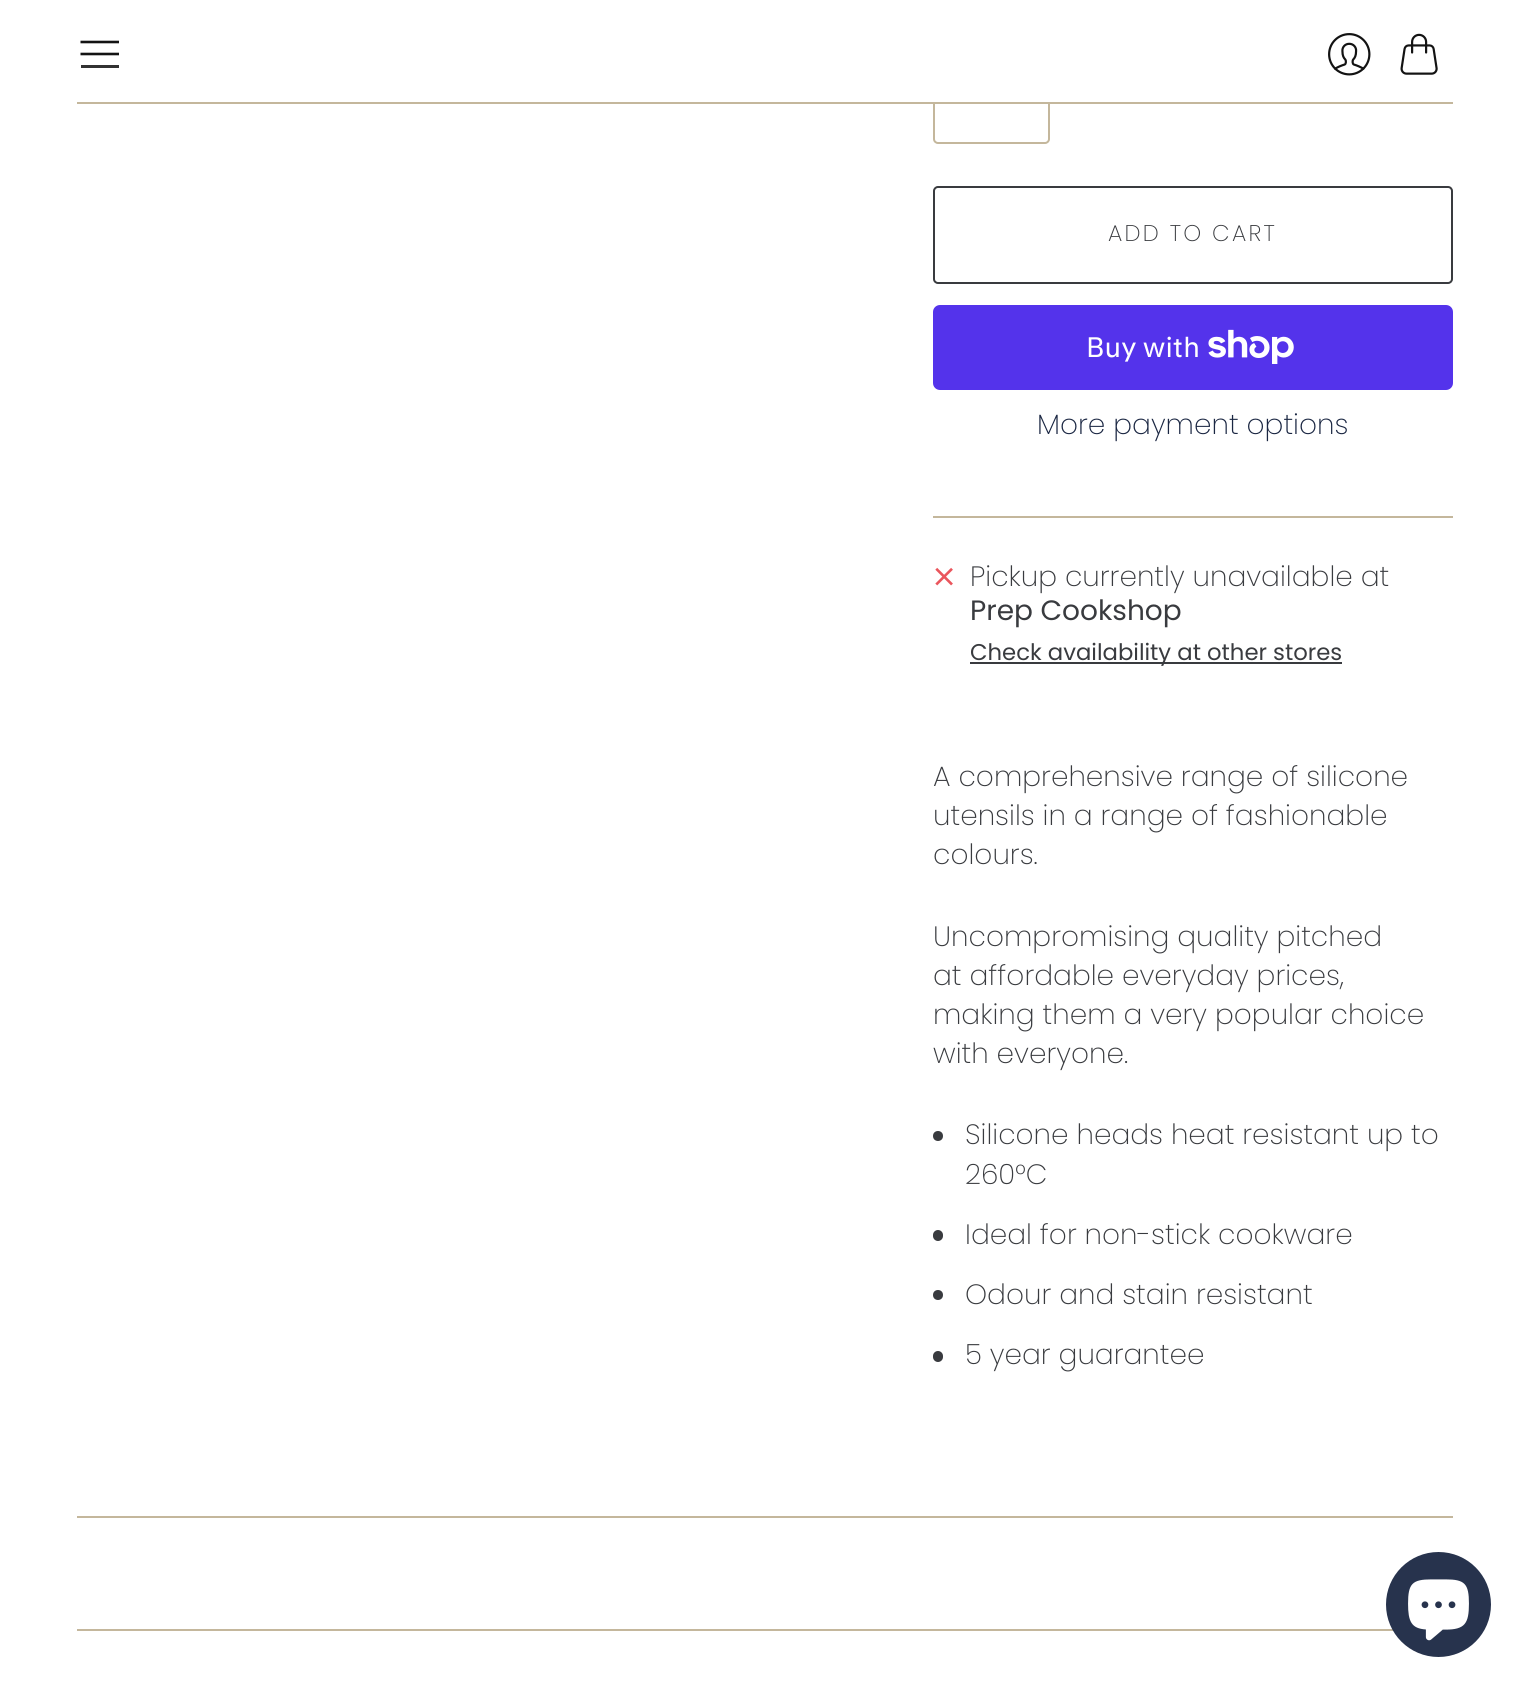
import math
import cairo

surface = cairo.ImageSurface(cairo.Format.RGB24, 1529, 1694)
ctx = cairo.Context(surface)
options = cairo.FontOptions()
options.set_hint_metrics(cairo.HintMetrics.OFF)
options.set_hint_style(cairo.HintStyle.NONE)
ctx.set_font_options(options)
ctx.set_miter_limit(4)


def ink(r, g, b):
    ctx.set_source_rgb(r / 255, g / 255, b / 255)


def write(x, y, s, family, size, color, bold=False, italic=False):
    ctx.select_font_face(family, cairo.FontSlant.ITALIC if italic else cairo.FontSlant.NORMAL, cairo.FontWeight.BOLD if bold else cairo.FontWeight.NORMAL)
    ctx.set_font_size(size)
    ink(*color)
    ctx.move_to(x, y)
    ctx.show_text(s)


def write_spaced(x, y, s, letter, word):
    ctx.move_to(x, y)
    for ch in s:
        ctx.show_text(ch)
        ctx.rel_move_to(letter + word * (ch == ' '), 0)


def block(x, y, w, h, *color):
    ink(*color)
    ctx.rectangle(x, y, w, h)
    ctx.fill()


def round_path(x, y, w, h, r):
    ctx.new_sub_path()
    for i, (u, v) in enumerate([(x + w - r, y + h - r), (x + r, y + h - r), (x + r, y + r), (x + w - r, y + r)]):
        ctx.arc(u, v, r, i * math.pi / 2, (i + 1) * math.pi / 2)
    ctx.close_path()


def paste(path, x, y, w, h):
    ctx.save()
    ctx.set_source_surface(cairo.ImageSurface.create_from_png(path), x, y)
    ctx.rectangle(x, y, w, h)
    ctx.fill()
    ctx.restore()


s1 = dict(family="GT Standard", size=28, color=(255, 255, 255))
s2 = dict(family="Poppins Light", size=28, color=(26, 38, 66))
s3 = dict(family="Poppins Light", size=28, color=(57, 59, 63))
s4 = dict(family="Poppins", size=28, color=(57, 59, 63))
s5 = dict(family="Poppins", size=22.75, color=(57, 59, 63))

ink(255, 255, 255)
ctx.paint()
ctx.new_path()
ctx.move_to(80.5, 42)
ctx.line_to(119, 42)
ctx.move_to(80.5, 54)
ctx.line_to(119, 54)
ink(19, 19, 19)
ctx.set_line_width(2.6)
ctx.stroke()
block(81, 65, 38, 3, 50, 50, 50)
paste("pic1.png", 1328, 33, 43, 43)
paste("pic2.png", 1400, 33, 38, 42)
round_path(934, 59, 115, 84, 4)
ink(196, 183, 156)
ctx.set_line_width(2)
ctx.stroke()
block(933, 58, 117, 45, 255, 255, 255)
block(77, 102, 1376, 2, 196, 183, 156)
round_path(934, 187, 518, 96, 4)
ink(57, 59, 63)
ctx.stroke()
ctx.select_font_face("Poppins Light")
ctx.set_font_size(22.75)
write_spaced(1108, 241, "ADD TO CART", 2.25, 0)
ink(84, 51, 235)
round_path(933, 305, 520, 85, 7)
ctx.fill()
write(1086, 357, "Buy with", **s1)
paste("pic3.png", 1208, 329, 86, 35)
write(1037, 434, "More payment options", **s2)
block(933, 516, 520, 2, 196, 183, 156)
paste("pic4.png", 935, 567, 18, 19)
write(970, 586, "Pickup currently unavailable at", **s3)
write(970, 620, "Prep Cookshop", **s4)
block(970, 662, 372, 2, 57, 59, 63)
write(970, 660, "Check availability at other stores", **s5)
write(933, 786, "A comprehensive range of silicone", **s3)
write(933, 825, "utensils in a range of fashionable", **s3)
write(933, 864, "colours.", **s3)
write(933, 946, "Uncompromising quality pitched", **s3)
write(933, 985, "at affordable everyday prices,", **s3)
write(933, 1024, "making them a very popular choice", **s3)
write(933, 1063, "with everyone.", **s3)
ctx.new_path()
ctx.arc(938, 1136, 5, 0, 2 * math.pi)
ctx.fill()
write(965, 1144, "Silicone heads heat resistant up to", **s3)
write(965, 1184, "260°C", **s3)
round_path(933, 1230, 10, 11, 5)
ctx.fill()
write(965, 1244, "Ideal for non-stick cookware", **s3)
ctx.new_path()
ctx.arc(938, 1295, 5, 0, 2 * math.pi)
ctx.fill()
write(965, 1304, "Odour and stain resistant", **s3)
round_path(933, 1351, 10, 11, 5)
ctx.fill()
write(965, 1364, "5 year guarantee", **s3)
block(77, 1516, 1376, 2, 196, 183, 156)
block(77, 1629, 1317, 2, 196, 183, 156)
ink(39, 51, 77)
ctx.new_path()
ctx.arc(1438.5, 1604.5, 52.5, 0, 2 * math.pi)
ctx.fill()
paste("pic5.png", 1408, 1579, 61, 62)
surface.write_to_png("screenshot.png")
